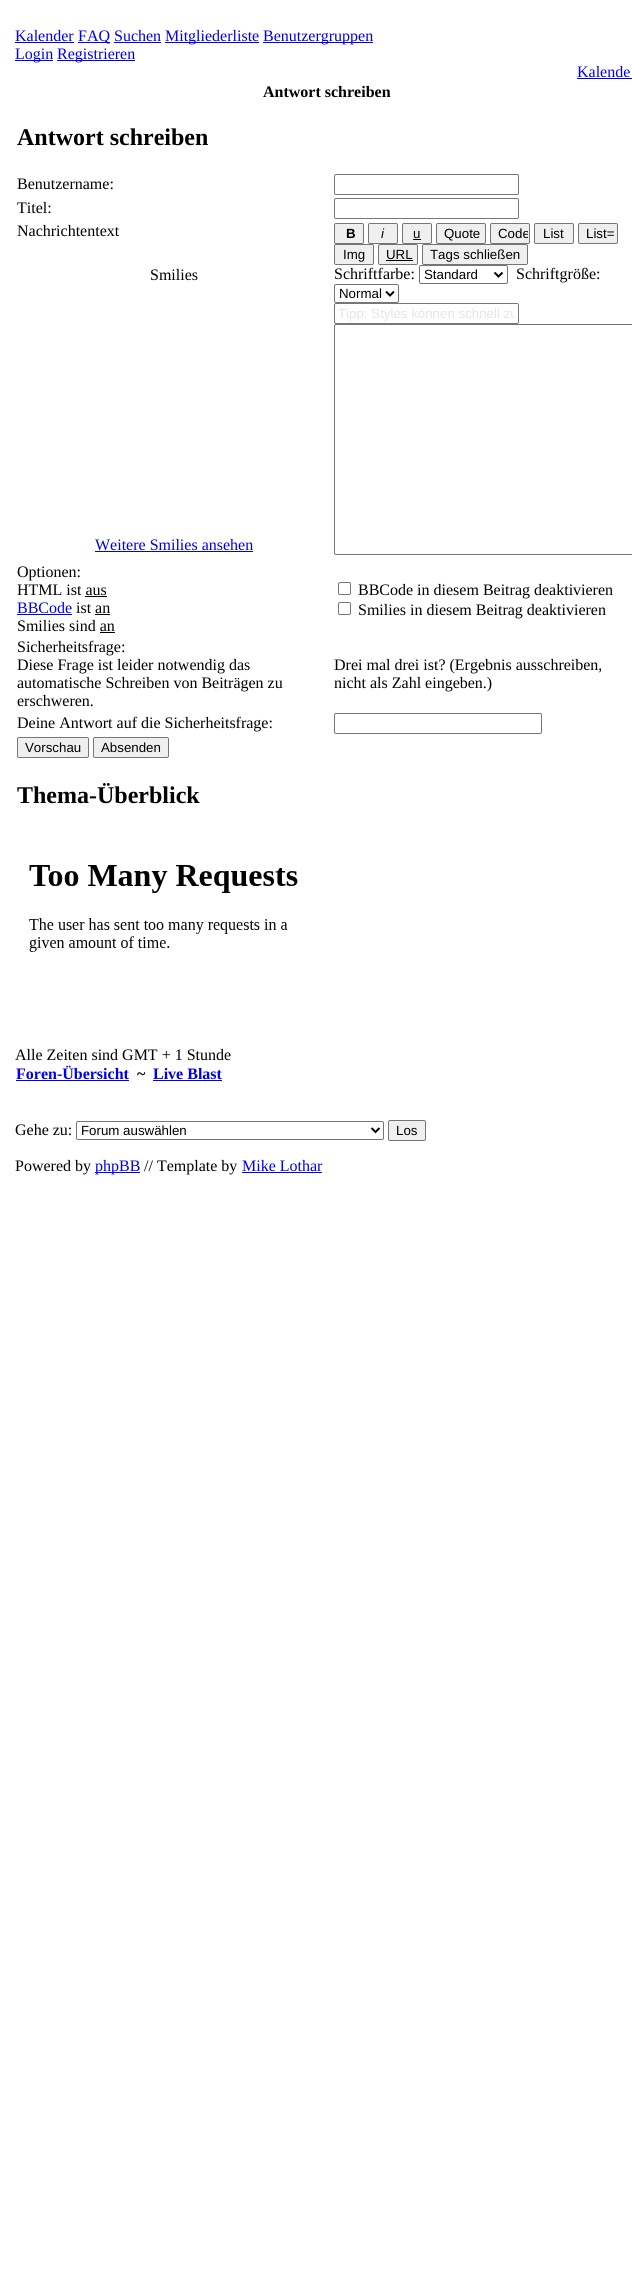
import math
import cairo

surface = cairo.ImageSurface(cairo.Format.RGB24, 632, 2282)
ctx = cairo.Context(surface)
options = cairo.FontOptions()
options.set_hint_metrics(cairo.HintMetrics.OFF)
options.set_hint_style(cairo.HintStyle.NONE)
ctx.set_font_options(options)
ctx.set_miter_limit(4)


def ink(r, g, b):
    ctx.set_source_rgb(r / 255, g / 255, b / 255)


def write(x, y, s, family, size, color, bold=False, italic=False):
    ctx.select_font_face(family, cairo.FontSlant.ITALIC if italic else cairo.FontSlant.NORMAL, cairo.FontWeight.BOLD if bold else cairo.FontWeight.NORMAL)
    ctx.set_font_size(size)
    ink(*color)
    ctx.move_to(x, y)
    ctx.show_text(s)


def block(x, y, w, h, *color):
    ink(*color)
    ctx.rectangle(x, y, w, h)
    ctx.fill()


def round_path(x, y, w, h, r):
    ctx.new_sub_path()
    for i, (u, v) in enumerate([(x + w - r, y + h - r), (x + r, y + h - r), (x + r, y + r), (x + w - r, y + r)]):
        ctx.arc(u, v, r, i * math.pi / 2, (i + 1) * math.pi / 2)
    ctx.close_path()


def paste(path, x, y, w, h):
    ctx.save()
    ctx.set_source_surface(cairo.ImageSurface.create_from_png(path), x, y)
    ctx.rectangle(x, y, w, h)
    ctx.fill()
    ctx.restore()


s1 = dict(family="Liberation Serif", size=16, color=(0, 0, 238))
s2 = dict(family="Liberation Serif", size=16, color=(0, 0, 0), bold=True)
s3 = dict(family="Liberation Serif", size=24, color=(0, 0, 0), bold=True)
s4 = dict(family="Liberation Serif", size=16, color=(0, 0, 0))
s5 = dict(family="Liberation Sans", size=13.3, color=(0, 0, 0), bold=True)
s6 = dict(family="Liberation Sans", size=13.3, color=(0, 0, 0), italic=True)
s7 = dict(family="Liberation Sans", size=13.3, color=(0, 0, 0))
s8 = dict(family="Liberation Sans", size=13.3, color=(229, 229, 229))
s9 = dict(family="Liberation Serif", size=16, color=(0, 0, 238), bold=True)

ink(255, 255, 255)
ctx.paint()
write(15, 41, "Kalender", **s1)
block(15, 42, 59, 1, 0, 0, 238)
block(78, 42, 32, 1, 0, 0, 238)
write(78, 41, "FAQ Suchen", **s1)
block(165, 42, 94, 1, 0, 0, 238)
write(165, 41, "Mitgliederliste", **s1)
block(263, 42, 110, 1, 0, 0, 238)
write(263, 41, "Benutzergruppen", **s1)
block(114, 42, 47, 1, 0, 0, 238)
block(15, 60, 38, 1, 0, 0, 238)
write(15, 59, "Login", **s1)
block(57, 60, 78, 1, 0, 0, 238)
write(57, 59, "Registrieren", **s1)
write(577, 77, "Kalende", **s1)
block(577, 78, 55, 1, 0, 0, 238)
write(263, 97, "Antwort schreiben", **s2)
write(17, 145, "Antwort schreiben", **s3)
write(17, 189, "Benutzername:", **s4)
round_path(334.5, 174.5, 184, 20, 1.5)
ink(118, 118, 118)
ctx.set_line_width(1)
ctx.stroke()
write(17, 213, "Titel:", **s4)
round_path(334.5, 198.5, 184, 20, 1.5)
ink(118, 118, 118)
ctx.stroke()
write(17, 236, "Nachrichtentext", **s4)
write(150, 280, "Smilies", **s4)
write(95, 550, "Weitere Smilies ansehen", **s1)
block(95, 551, 158, 1, 0, 0, 238)
ink(239, 239, 239)
round_path(334.5, 223.5, 29, 20, 1.5)
ctx.fill_preserve()
ink(118, 118, 118)
ctx.stroke()
write(346, 238, "B", **s5)
ink(239, 239, 239)
round_path(368.5, 223.5, 29, 20, 1.5)
ctx.fill_preserve()
ink(118, 118, 118)
ctx.stroke()
write(381, 238, "i", **s6)
ink(239, 239, 239)
round_path(402.5, 223.5, 29, 20, 1.5)
ctx.fill_preserve()
ink(118, 118, 118)
ctx.stroke()
write(413, 238, "u", **s7)
block(413, 239, 8, 1, 0, 0, 0)
ink(239, 239, 239)
round_path(436.5, 223.5, 49, 20, 1.5)
ctx.fill_preserve()
ink(118, 118, 118)
ctx.stroke()
write(444, 238, "Quote", **s7)
ink(239, 239, 239)
round_path(490.5, 223.5, 39, 20, 1.5)
ctx.fill_preserve()
ink(118, 118, 118)
ctx.stroke()
ctx.save()
ctx.rectangle(492, 225, 36, 17)
ctx.clip()
write(498, 238, "Code", **s7)
ctx.restore()
ink(239, 239, 239)
round_path(534.5, 223.5, 39, 20, 1.5)
ctx.fill_preserve()
ink(118, 118, 118)
ctx.stroke()
write(543, 238, "List", **s7)
ink(239, 239, 239)
round_path(578.5, 223.5, 39, 20, 1.5)
ctx.fill_preserve()
ink(118, 118, 118)
ctx.stroke()
write(586, 238, "List=", **s7)
ink(239, 239, 239)
round_path(334.5, 244.5, 39, 20, 1.5)
ctx.fill_preserve()
ink(118, 118, 118)
ctx.stroke()
write(343, 259, "Img", **s7)
ink(239, 239, 239)
round_path(378.5, 244.5, 39, 20, 1.5)
ctx.fill_preserve()
ink(118, 118, 118)
ctx.stroke()
write(386, 259, "URL", **s7)
block(386, 260, 27, 1, 0, 0, 0)
ink(239, 239, 239)
round_path(422.5, 244.5, 105, 20, 1.5)
ctx.fill_preserve()
ink(118, 118, 118)
ctx.stroke()
write(430, 259, "Tags schließen", **s7)
write(334, 279, "Schriftfarbe:", **s4)
round_path(419.5, 265.5, 88, 18, 1.5)
ink(118, 118, 118)
ctx.stroke()
ctx.new_path()
ctx.move_to(494.5, 272.5)
ctx.line_to(498.5, 276.5)
ctx.line_to(502.5, 272.5)
ink(0, 0, 0)
ctx.set_line_width(2)
ctx.stroke()
write(424, 279, "Standard", **s7)
write(516, 279, "Schriftgröße:", **s4)
round_path(334.5, 284.5, 64, 18, 1.5)
ink(118, 118, 118)
ctx.set_line_width(1)
ctx.stroke()
ctx.new_path()
ctx.move_to(386, 291.5)
ctx.line_to(390, 295.5)
ctx.line_to(394, 291.5)
ink(0, 0, 0)
ctx.set_line_width(2)
ctx.stroke()
write(339, 298, "Normal", **s7)
round_path(334.5, 303.5, 184, 20, 1.5)
ink(118, 118, 118)
ctx.set_line_width(1)
ctx.stroke()
ctx.save()
ctx.rectangle(338, 306, 177, 15)
ctx.clip()
write(338, 318, "Tipp: Styles können schnell zu", **s8)
ctx.restore()
round_path(334.5, 324.5, 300, 230, 1.5)
ctx.stroke()
write(17, 577, "Optionen:", **s4)
write(17, 595, "HTML ist aus", **s4)
block(85, 596, 22, 1, 0, 0, 0)
write(17, 613, "BBCode", **s1)
block(17, 614, 55, 1, 0, 0, 238)
write(76, 613, "ist an", **s4)
block(95, 614, 15, 1, 0, 0, 0)
write(17, 631, "Smilies sind an", **s4)
block(100, 632, 15, 1, 0, 0, 0)
round_path(338.5, 582.5, 12, 12, 1.5)
ink(118, 118, 118)
ctx.stroke()
write(358, 595, "BBCode in diesem Beitrag deaktivieren", **s4)
round_path(338.5, 602.5, 12, 12, 1.5)
ink(118, 118, 118)
ctx.stroke()
write(358, 615, "Smilies in diesem Beitrag deaktivieren", **s4)
write(17, 652, "Sicherheitsfrage:", **s4)
write(17, 670, "Diese Frage ist leider notwendig das", **s4)
write(17, 688, "automatische Schreiben von Beiträgen zu", **s4)
write(17, 706, "erschweren.", **s4)
write(334, 670, "Drei mal drei ist? (Ergebnis ausschreiben,", **s4)
write(334, 688, "nicht als Zahl eingeben.)", **s4)
write(17, 728, "Deine Antwort auf die Sicherheitsfrage:", **s4)
round_path(334.5, 713.5, 207, 20, 1.5)
ink(118, 118, 118)
ctx.stroke()
ink(239, 239, 239)
round_path(17.5, 737.5, 71, 20, 1.5)
ctx.fill_preserve()
ink(118, 118, 118)
ctx.stroke()
write(25, 752, "Vorschau", **s7)
ink(239, 239, 239)
round_path(93.5, 737.5, 75, 20, 1.5)
ctx.fill_preserve()
ink(118, 118, 118)
ctx.stroke()
write(101, 752, "Absenden", **s7)
write(17, 803, "Thema-Überblick", **s3)
paste("pic1.png", 29, 865, 269, 87)
write(15, 1060, "Alle Zeiten sind GMT + 1 Stunde", **s4)
write(16, 1079, "Foren-Übersicht", **s9)
block(16, 1080, 113, 1, 0, 0, 238)
write(137, 1079, "~", **s2)
write(153, 1079, "Live Blast", **s9)
block(153, 1080, 69, 1, 0, 0, 238)
write(15, 1135, "Gehe zu:", **s4)
round_path(76.5, 1121.5, 307, 18, 1.5)
ink(118, 118, 118)
ctx.stroke()
ctx.new_path()
ctx.move_to(371.5, 1128)
ctx.line_to(375.5, 1132)
ctx.line_to(379.5, 1128)
ink(0, 0, 0)
ctx.set_line_width(2)
ctx.stroke()
write(81, 1135, "Forum auswählen", **s7)
ink(239, 239, 239)
round_path(388.5, 1120.5, 37, 20, 1.5)
ctx.fill_preserve()
ink(118, 118, 118)
ctx.set_line_width(1)
ctx.stroke()
write(396, 1135, "Los", **s7)
write(15, 1171, "Powered by", **s4)
block(95, 1172, 45, 1, 0, 0, 238)
write(95, 1171, "phpBB", **s1)
write(144, 1171, "// Template by", **s4)
write(242, 1171, "Mike Lothar", **s1)
block(242, 1172, 80, 1, 0, 0, 238)
surface.write_to_png("screenshot.png")
